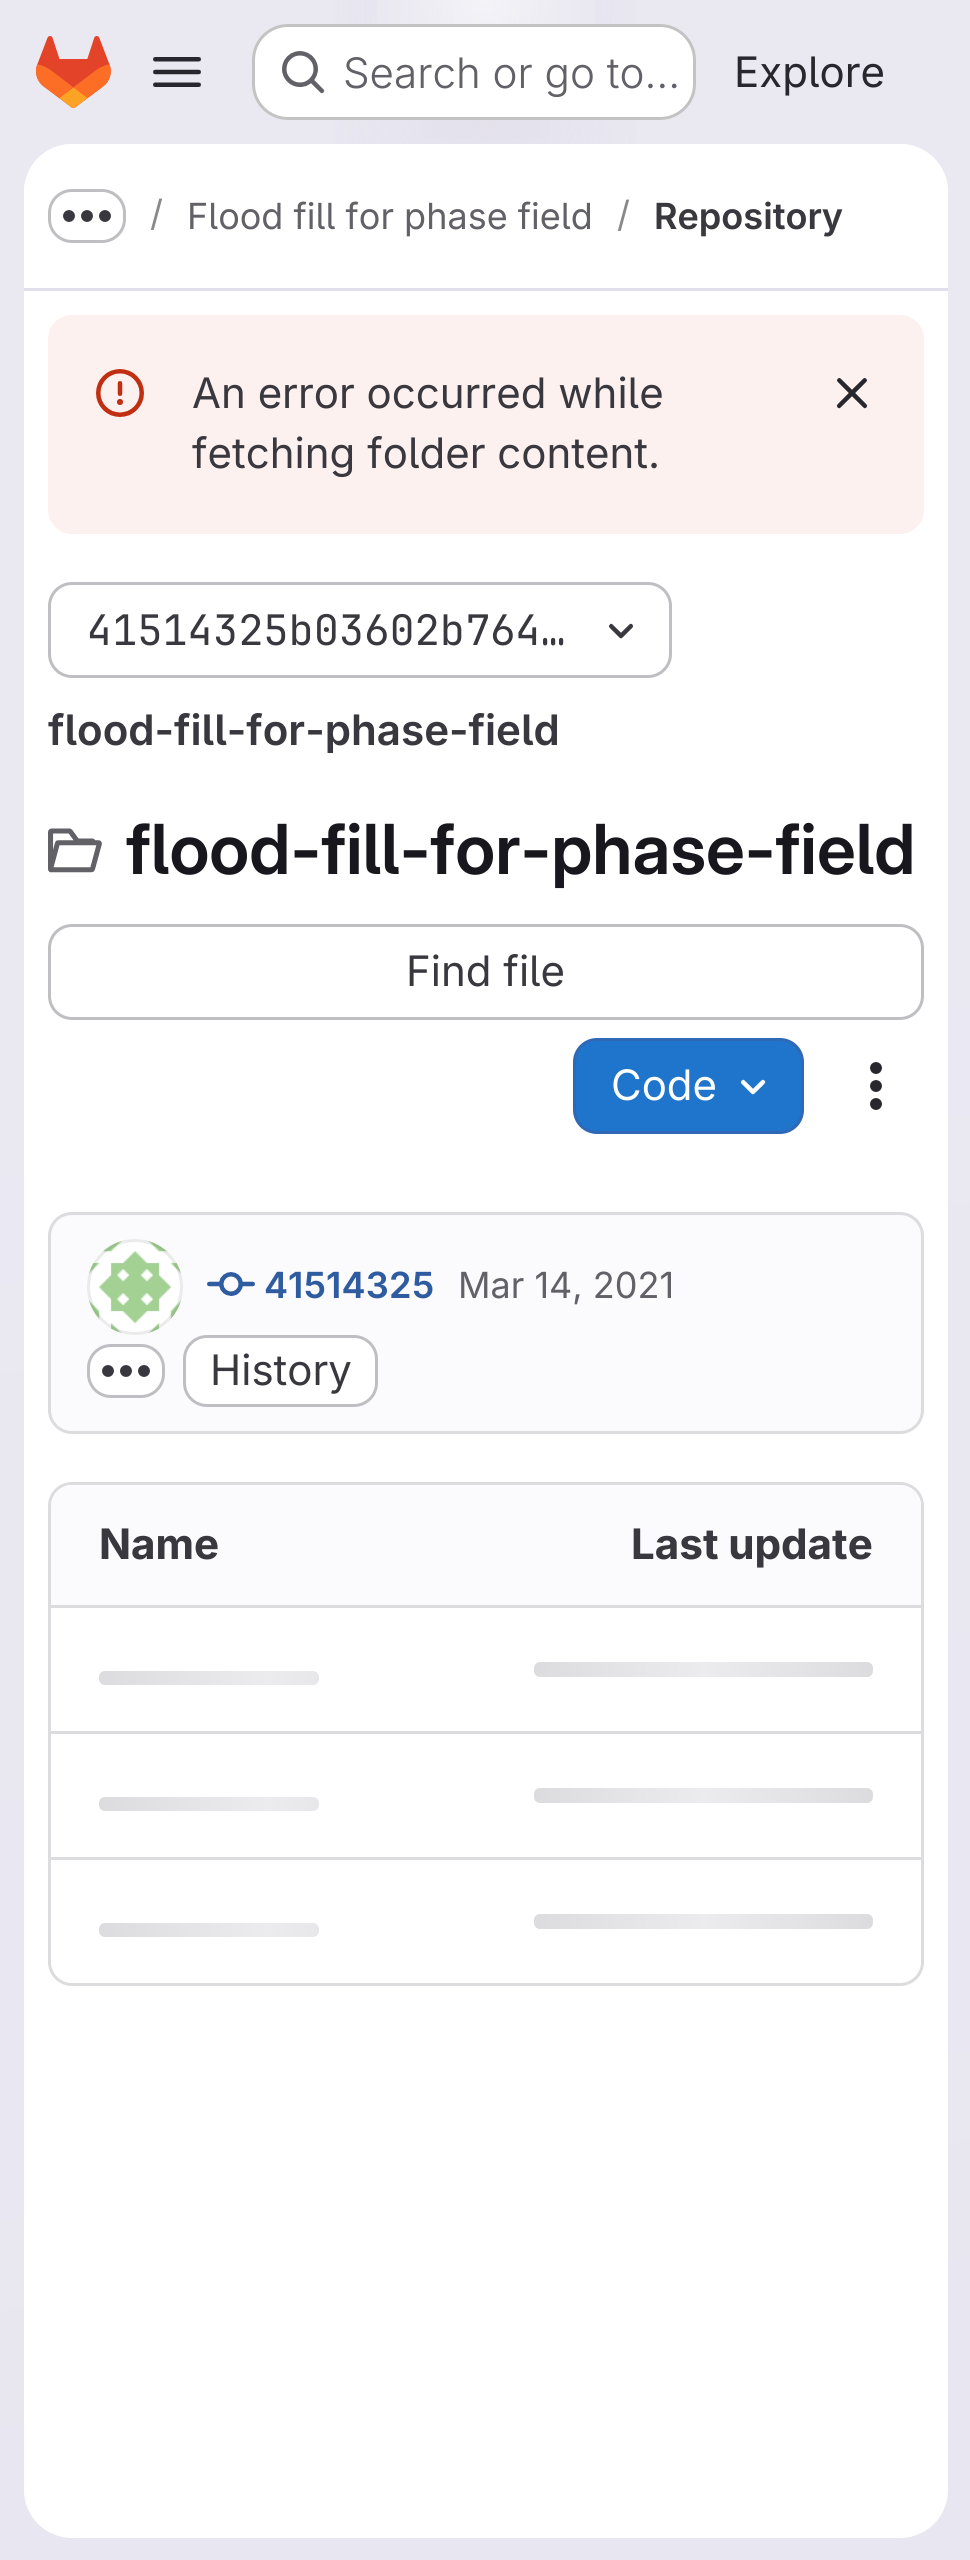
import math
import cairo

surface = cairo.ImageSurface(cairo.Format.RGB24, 970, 2560)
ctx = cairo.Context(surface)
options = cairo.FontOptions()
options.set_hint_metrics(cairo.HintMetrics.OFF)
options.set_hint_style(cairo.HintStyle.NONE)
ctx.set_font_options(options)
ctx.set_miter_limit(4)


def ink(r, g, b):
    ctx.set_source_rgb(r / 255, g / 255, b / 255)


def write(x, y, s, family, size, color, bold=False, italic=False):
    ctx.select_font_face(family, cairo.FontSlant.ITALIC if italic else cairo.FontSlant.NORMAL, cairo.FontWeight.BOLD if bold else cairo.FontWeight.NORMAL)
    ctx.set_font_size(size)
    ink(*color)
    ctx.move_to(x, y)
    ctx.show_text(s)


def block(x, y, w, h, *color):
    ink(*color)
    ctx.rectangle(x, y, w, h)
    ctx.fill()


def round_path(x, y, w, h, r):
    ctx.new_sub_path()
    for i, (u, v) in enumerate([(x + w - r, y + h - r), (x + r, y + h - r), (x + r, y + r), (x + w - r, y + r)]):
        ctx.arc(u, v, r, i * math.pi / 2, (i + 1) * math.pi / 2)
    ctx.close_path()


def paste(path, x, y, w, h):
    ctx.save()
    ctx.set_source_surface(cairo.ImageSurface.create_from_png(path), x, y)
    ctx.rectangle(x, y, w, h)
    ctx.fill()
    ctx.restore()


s1 = dict(family="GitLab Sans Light", size=42, color=(98, 97, 104))
s2 = dict(family="GitLab Sans", size=42, color=(40, 39, 45))
s3 = dict(family="GitLab Sans", size=36, color=(137, 136, 141))
s4 = dict(family="GitLab Sans", size=36, color=(98, 97, 104))
s5 = dict(family="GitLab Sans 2 SemiBold", size=36, color=(58, 56, 63))
s6 = dict(family="GitLab Sans", size=42, color=(58, 56, 63))
s7 = dict(family="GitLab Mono", size=42, color=(58, 56, 63))
s8 = dict(family="GitLab Sans 2 SemiBold", size=42, color=(58, 56, 63))
s9 = dict(family="GitLab Sans SemiBold", size=69, color=(24, 23, 29))
s10 = dict(family="GitLab Sans", size=42, color=(255, 255, 255))
s11 = dict(family="GitLab Sans 2 SemiBold", size=36, color=(47, 92, 160))
s12 = dict(family="GitLab Sans", size=42, color=(58, 56, 63), bold=True)

ink(255, 255, 255)
ctx.paint()
gradient = cairo.LinearGradient(720, 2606, 252, -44)
gradient.add_color_stop_rgba(0, 0.91, 0.902, 0.941, 1)
gradient.add_color_stop_rgba(0.7, 0.918, 0.914, 0.949, 1)
ctx.set_source(gradient)
ctx.rectangle(0, 0, 970, 2560)
ctx.fill()
gradient = cairo.RadialGradient(0, 0, 0, 0, 0, 1)
gradient.set_matrix(cairo.Matrix(1 / 486, 0, 0, 1 / 2562, -1 * 486 / 486, -1 * 0 / 2562))
gradient.add_color_stop_rgba(0, 0.894, 0.886, 0.929, 1)
gradient.add_color_stop_rgba(0.43, 0.894, 0.886, 0.929, 0)
ctx.set_source(gradient)
ctx.rectangle(335, 0, 302, 144)
ctx.fill()
gradient = cairo.RadialGradient(0, 0, 0, 0, 0, 1)
gradient.set_matrix(cairo.Matrix(1 / 486, 0, 0, 1 / 2562, -1 * 486 / 486, -1 * 0 / 2562))
gradient.add_color_stop_rgba(0, 0.894, 0.886, 0.925, 1)
gradient.add_color_stop_rgba(0.31, 0.894, 0.886, 0.925, 0)
ctx.set_source(gradient)
ctx.rectangle(423, 26, 126, 112)
ctx.fill()
gradient = cairo.RadialGradient(486, 0, 0, 486, 0, 2608)
gradient.add_color_stop_rgba(0, 1, 1, 1, 0.6)
gradient.add_color_stop_rgba(0.05, 1, 1, 1, 0)
ctx.set_source(gradient)
ctx.rectangle(377, 0, 218, 24)
ctx.fill()
paste("pic1.png", 36, 36, 75, 72)
paste("pic2.png", 153, 57, 48, 30)
ink(255, 255, 255)
round_path(252, 24, 444, 96, 36)
ctx.fill()
round_path(253.5, 25.5, 441, 93, 34.5)
ctx.set_source_rgba(0.02, 0.02, 0.024, 0.24)
ctx.set_line_width(3)
ctx.stroke()
paste("pic3.png", 282, 51, 43, 43)
write(343, 88, "Search or go to…", **s1)
write(734, 87, "Explore", **s2)
ink(255, 255, 255)
round_path(24, 144, 924, 2394, 48)
ctx.fill()
ctx.new_path()
ctx.move_to(72, 144)
ctx.line_to(900, 144)
ctx.curve_to(926.5, 144, 948, 165.5, 948, 192)
ctx.line_to(948, 291)
ctx.line_to(24, 291)
ctx.line_to(24, 192)
ctx.curve_to(24, 165.5, 45.5, 144, 72, 144)
ctx.close_path()
ctx.fill()
block(24, 288, 924, 3, 225, 223, 236)
round_path(49.5, 190.5, 75, 51, 22.5)
ink(191, 191, 195)
ctx.stroke()
paste("pic4.png", 63, 210, 48, 12)
write(150, 226, "/", **s3)
write(187, 229, "Flood fill for phase field", **s4)
write(617, 227, "/", **s3)
write(654, 229, "Repository", **s5)
ink(252, 241, 239)
round_path(48, 315, 876, 219, 24)
ctx.fill()
paste("pic5.png", 96, 369, 48, 48)
write(192, 408, "An error occurred while", **s6)
write(192, 468, "fetching folder content.", **s6)
paste("pic6.png", 836, 378, 32, 31)
round_path(49.5, 583.5, 621, 93, 22.5)
ink(191, 191, 195)
ctx.stroke()
write(87, 645, "41514325b03602b764…", **s7)
paste("pic7.png", 608, 623, 26, 16)
ctx.save()
round_path(48, 702, 513, 51, 12)
ctx.clip()
write(48, 745, "flood-fill-for-phase-field", **s8)
ctx.restore()
paste("pic8.png", 48, 828, 54, 45)
write(126, 874, "flood-fill-for-phase-field", **s9)
round_path(49.5, 925.5, 873, 93, 22.5)
ink(191, 191, 195)
ctx.stroke()
write(406, 986, "Find file", **s6)
ink(31, 117, 203)
round_path(574.5, 1039.5, 228, 93, 22.5)
ctx.fill_preserve()
ink(47, 104, 180)
ctx.stroke()
write(611, 1100, "Code", **s10)
paste("pic9.png", 740, 1079, 26, 16)
paste("pic10.png", 870, 1062, 12, 48)
ink(251, 250, 253)
round_path(49.5, 1213.5, 873, 219, 22.5)
ctx.fill_preserve()
ink(220, 220, 222)
ctx.stroke()
paste("pic11.png", 87, 1239, 96, 96)
ctx.arc(135, 1287, 46.5, 0, 2 * math.pi)
ctx.set_source_rgba(0.02, 0.02, 0.024, 0.08)
ctx.stroke()
paste("pic12.png", 207, 1272, 48, 24)
write(264, 1298, "41514325", **s11)
write(458, 1298, "Mar 14, 2021", **s4)
ink(255, 255, 255)
round_path(88.5, 1345.5, 75, 51, 22.5)
ctx.fill_preserve()
ink(191, 191, 195)
ctx.stroke()
paste("pic13.png", 102, 1365, 48, 12)
ink(255, 255, 255)
round_path(184.5, 1336.5, 192, 69, 22.5)
ctx.fill_preserve()
ink(191, 191, 195)
ctx.stroke()
write(210, 1385, "History", **s6)
round_path(49.5, 1483.5, 873, 501, 22.5)
ink(220, 220, 222)
ctx.stroke()
ink(251, 250, 253)
ctx.new_path()
ctx.move_to(72, 1485)
ctx.line_to(486, 1485)
ctx.line_to(486, 1605)
ctx.line_to(51, 1605)
ctx.line_to(51, 1506)
ctx.curve_to(51, 1494.5, 60.5, 1485, 72, 1485)
ctx.close_path()
ctx.fill()
write(99, 1559, "Name", **s12)
ink(251, 250, 253)
ctx.new_path()
ctx.move_to(486, 1485)
ctx.line_to(900, 1485)
ctx.curve_to(911.5, 1485, 921, 1494.5, 921, 1506)
ctx.line_to(921, 1605)
ctx.line_to(486, 1605)
ctx.close_path()
ctx.fill()
write(631, 1559, "Last update", **s12)
block(51, 1605, 870, 3, 220, 220, 222)
gradient = cairo.LinearGradient(534, 1662, 873, 1662)
gradient.add_color_stop_rgba(0, 0.863, 0.863, 0.871, 1)
gradient.add_color_stop_rgba(0.5, 0.925, 0.925, 0.937, 1)
gradient.add_color_stop_rgba(1, 0.863, 0.863, 0.871, 1)
ctx.set_source(gradient)
round_path(534, 1662, 339, 15, 6)
ctx.fill()
gradient = cairo.LinearGradient(99, 1671, 438, 1671)
gradient.add_color_stop_rgba(0, 0.863, 0.863, 0.871, 1)
gradient.add_color_stop_rgba(0.5, 0.925, 0.925, 0.937, 1)
gradient.add_color_stop_rgba(1, 0.863, 0.863, 0.871, 1)
ctx.set_source(gradient)
round_path(99, 1671, 220, 14, 6)
ctx.fill()
block(51, 1731, 870, 3, 220, 220, 222)
gradient = cairo.LinearGradient(534, 1788, 873, 1788)
gradient.add_color_stop_rgba(0, 0.863, 0.863, 0.871, 1)
gradient.add_color_stop_rgba(0.5, 0.925, 0.925, 0.937, 1)
gradient.add_color_stop_rgba(1, 0.863, 0.863, 0.871, 1)
ctx.set_source(gradient)
round_path(534, 1788, 339, 15, 6)
ctx.fill()
gradient = cairo.LinearGradient(99, 1797, 438, 1797)
gradient.add_color_stop_rgba(0, 0.863, 0.863, 0.871, 1)
gradient.add_color_stop_rgba(0.5, 0.925, 0.925, 0.937, 1)
gradient.add_color_stop_rgba(1, 0.863, 0.863, 0.871, 1)
ctx.set_source(gradient)
round_path(99, 1797, 220, 14, 6)
ctx.fill()
block(51, 1857, 870, 3, 220, 220, 222)
gradient = cairo.LinearGradient(534, 1914, 873, 1914)
gradient.add_color_stop_rgba(0, 0.863, 0.863, 0.871, 1)
gradient.add_color_stop_rgba(0.5, 0.925, 0.925, 0.937, 1)
gradient.add_color_stop_rgba(1, 0.863, 0.863, 0.871, 1)
ctx.set_source(gradient)
round_path(534, 1914, 339, 15, 6)
ctx.fill()
gradient = cairo.LinearGradient(99, 1923, 438, 1923)
gradient.add_color_stop_rgba(0, 0.863, 0.863, 0.871, 1)
gradient.add_color_stop_rgba(0.5, 0.925, 0.925, 0.937, 1)
gradient.add_color_stop_rgba(1, 0.863, 0.863, 0.871, 1)
ctx.set_source(gradient)
round_path(99, 1923, 220, 14, 6)
ctx.fill()
surface.write_to_png("screenshot.png")
